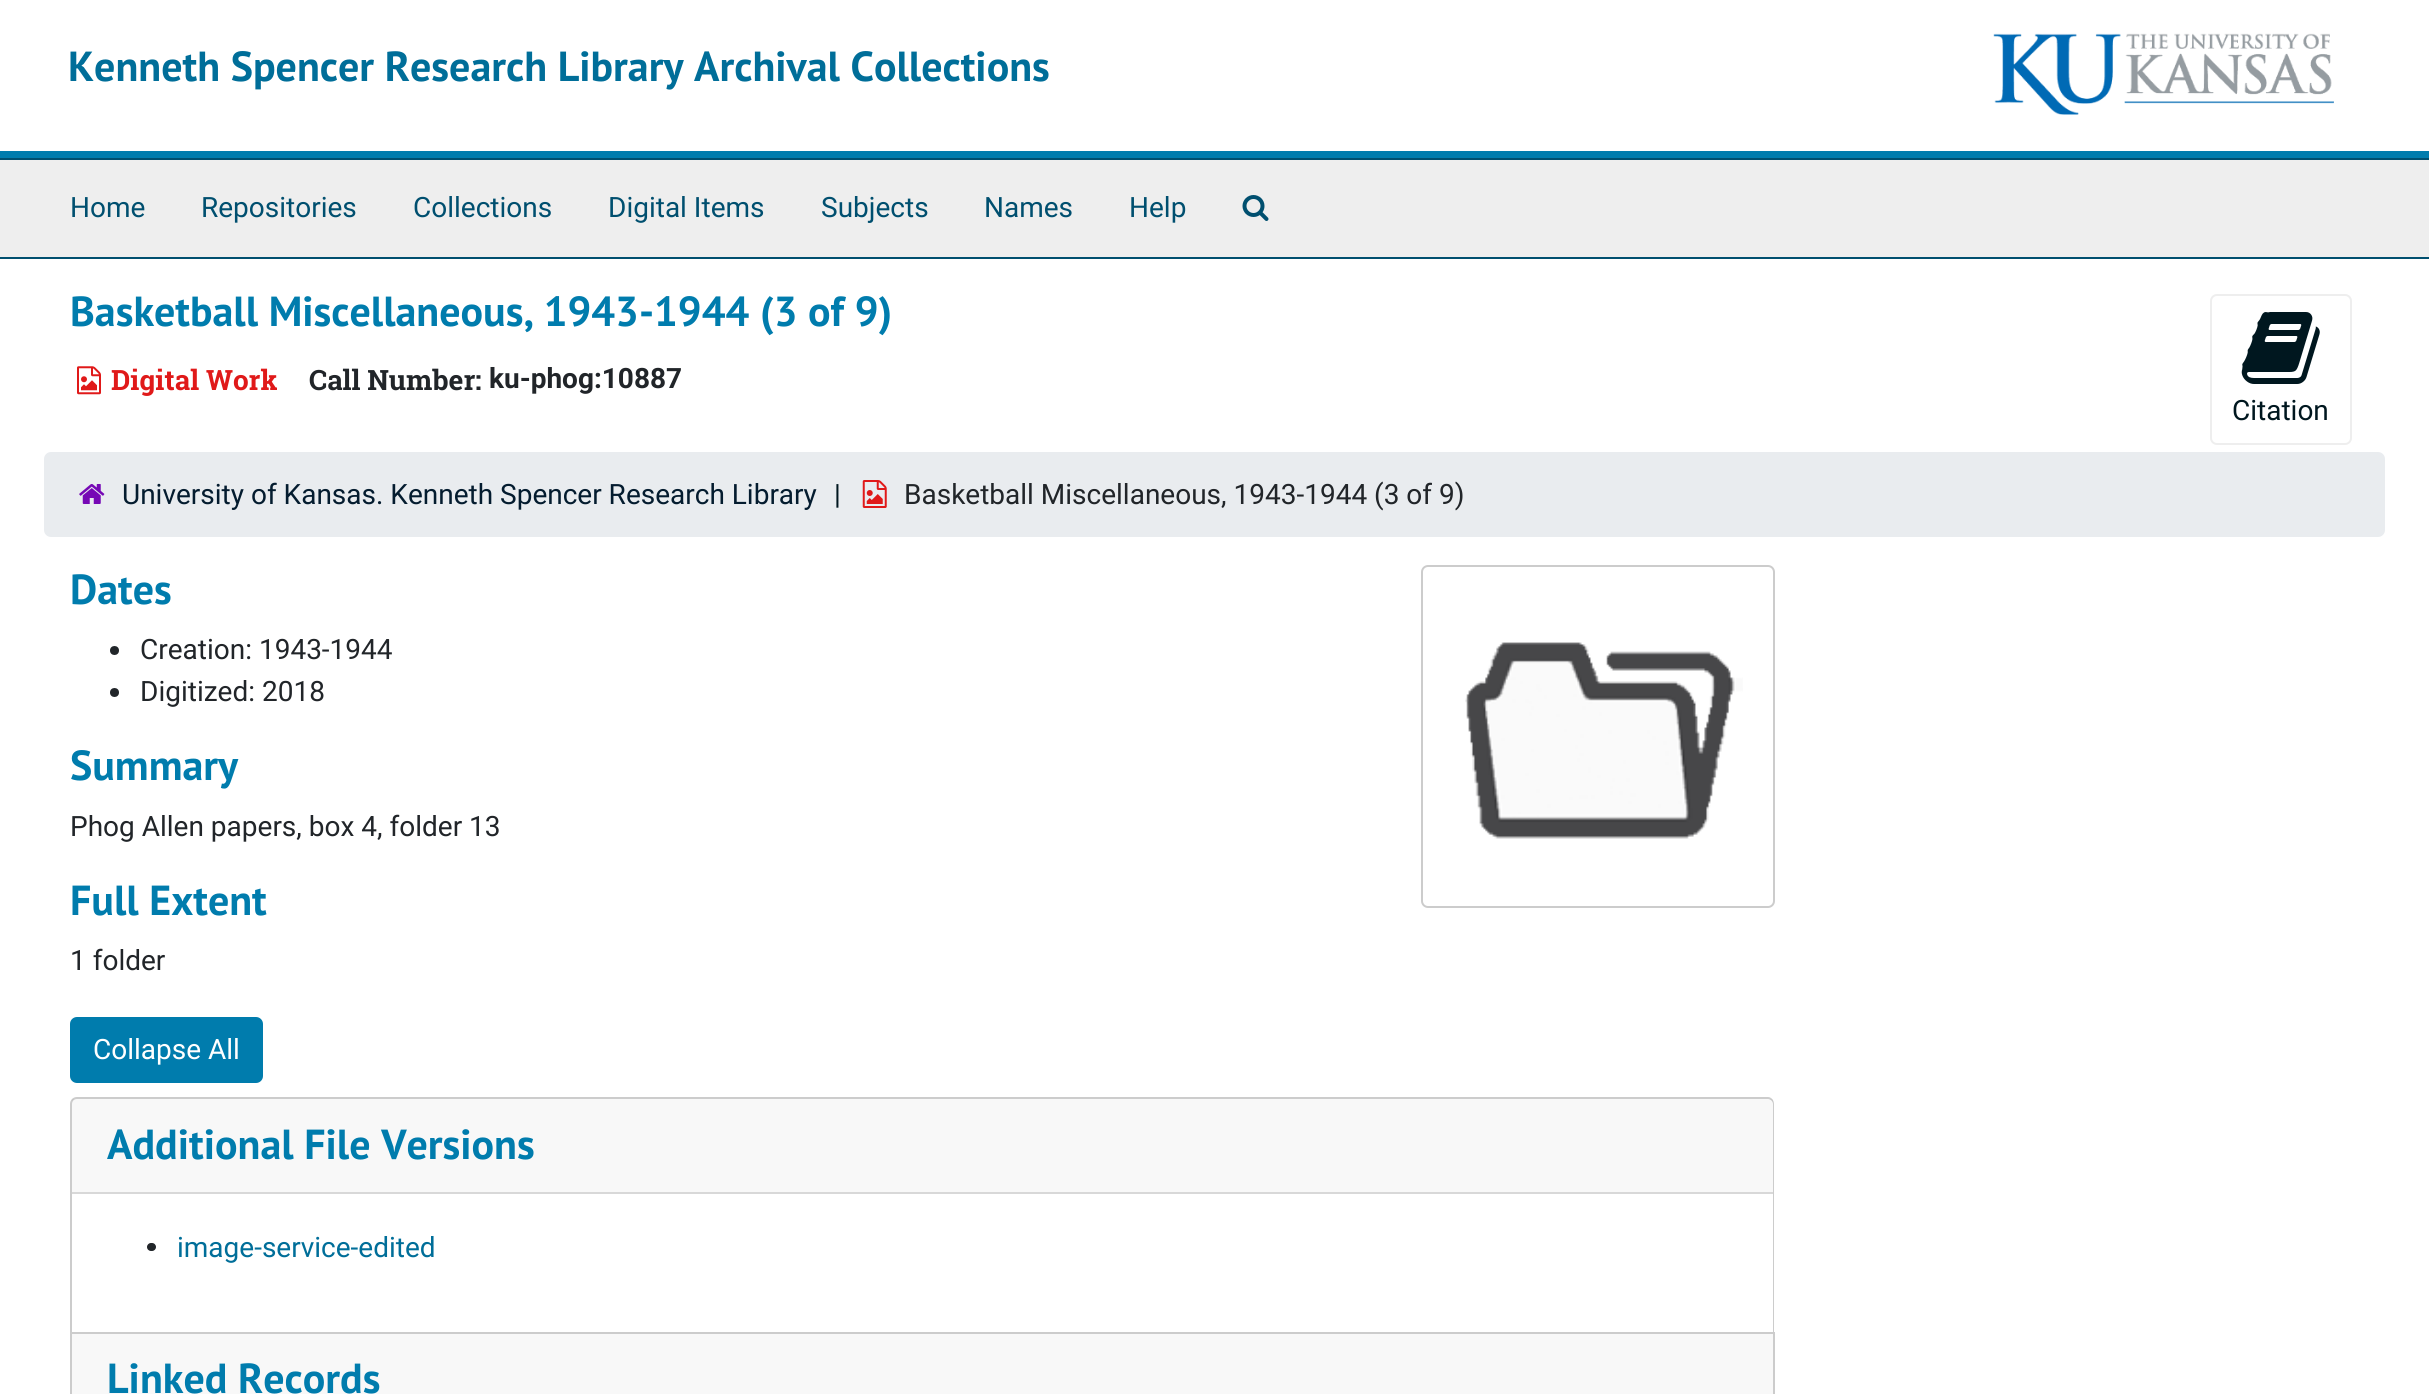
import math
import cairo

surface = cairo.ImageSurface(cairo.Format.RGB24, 2429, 1394)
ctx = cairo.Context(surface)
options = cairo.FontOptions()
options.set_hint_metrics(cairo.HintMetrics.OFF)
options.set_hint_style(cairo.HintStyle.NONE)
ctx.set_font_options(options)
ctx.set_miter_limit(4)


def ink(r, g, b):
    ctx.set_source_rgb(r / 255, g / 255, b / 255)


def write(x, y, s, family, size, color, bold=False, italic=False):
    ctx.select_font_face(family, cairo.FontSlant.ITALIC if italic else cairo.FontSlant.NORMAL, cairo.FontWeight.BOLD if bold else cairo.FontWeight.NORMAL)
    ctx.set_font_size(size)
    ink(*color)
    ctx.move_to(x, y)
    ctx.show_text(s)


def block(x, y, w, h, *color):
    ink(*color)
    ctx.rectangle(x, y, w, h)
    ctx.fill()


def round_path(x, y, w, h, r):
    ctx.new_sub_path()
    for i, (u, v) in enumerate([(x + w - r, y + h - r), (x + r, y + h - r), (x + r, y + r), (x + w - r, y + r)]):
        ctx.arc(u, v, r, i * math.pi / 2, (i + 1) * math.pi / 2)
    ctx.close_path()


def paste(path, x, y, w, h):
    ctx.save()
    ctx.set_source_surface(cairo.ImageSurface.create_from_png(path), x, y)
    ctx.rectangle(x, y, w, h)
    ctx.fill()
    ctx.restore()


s1 = dict(family="PT Sans", size=42, color=(0, 110, 153), bold=True)
s2 = dict(family="Roboto", size=28, color=(0, 79, 111))
s3 = dict(family="PT Sans", size=42, color=(0, 124, 173), bold=True)
s4 = dict(family="Roboto Slab", size=28, color=(224, 25, 25), bold=True)
s5 = dict(family="Roboto Slab", size=28, color=(33, 37, 41), bold=True)
s6 = dict(family="Roboto", size=28, color=(33, 37, 41), bold=True)
s7 = dict(family="Roboto", size=28, color=(0, 23, 31))
s8 = dict(family="Roboto", size=28, color=(4, 28, 47))
s9 = dict(family="Roboto", size=28, color=(33, 37, 41))
s10 = dict(family="Roboto", size=28, color=(255, 255, 255))
s11 = dict(family="Roboto", size=28, color=(0, 110, 153))

ink(255, 255, 255)
ctx.paint()
block(0, 151, 2429, 7, 0, 124, 173)
write(68, 81, "Kenneth Spencer Research Library Archival Collections", **s1)
paste("pic1.png", 1993, 33, 341, 82)
block(0, 160, 2429, 97, 238, 238, 238)
block(0, 158, 2429, 2, 0, 79, 111)
block(0, 257, 2429, 2, 0, 79, 111)
write(70, 217, "Home", **s2)
write(201, 217, "Repositories", **s2)
write(413, 217, "Collections", **s2)
write(608, 217, "Digital Items", **s2)
write(821, 217, "Subjects", **s2)
write(984, 217, "Names", **s2)
write(1129, 217, "Help", **s2)
paste("pic2.png", 1242, 195, 27, 26)
write(70, 326, "Basketball Miscellaneous, 1943-1944 (3 of 9)", **s3)
paste("pic3.png", 77, 366, 24, 29)
write(111, 390, "Digital Work", **s4)
write(309, 390, "Call Number:", **s5)
write(489, 388, "ku-phog:10887", **s6)
round_path(2211, 295, 140, 149, 6)
ink(238, 238, 238)
ctx.stroke()
paste("pic4.png", 2241, 312, 79, 72)
write(2232, 420, "Citation", **s7)
ink(233, 236, 239)
round_path(44, 452, 2341, 85, 7)
ctx.fill()
paste("pic5.png", 79, 484, 26, 20)
write(122, 504, "University of Kansas. Kenneth Spencer Research Library", **s8)
write(834, 504, "|", **s7)
paste("pic6.png", 862, 480, 25, 28)
write(904, 504, "Basketball Miscellaneous, 1943-1944 (3 of 9)", **s9)
write(70, 604, "Dates", **s3)
ink(33, 37, 41)
ctx.new_path()
ctx.arc(114.5, 650.5, 4.5, 0, 2 * math.pi)
ctx.fill()
write(140, 659, "Creation: 1943-1944", **s9)
ctx.new_path()
ctx.arc(114.5, 692.5, 4.5, 0, 2 * math.pi)
ctx.fill()
write(140, 701, "Digitized: 2018", **s9)
write(70, 780, "Summary", **s3)
write(70, 836, "Phog Allen papers, box 4, folder 13", **s9)
write(70, 915, "Full Extent", **s3)
write(70, 970, "1 folder", **s9)
round_path(1422, 566, 352, 341, 6)
ink(204, 204, 204)
ctx.stroke()
paste("pic7.png", 1465, 642, 278, 197)
ink(0, 124, 173)
round_path(71, 1018, 191, 64, 6)
ctx.fill_preserve()
ctx.stroke()
write(93, 1059, "Collapse All", **s10)
ink(204, 204, 204)
ctx.set_fill_rule(cairo.FillRule.EVEN_ODD)
ctx.new_path()
ctx.move_to(77, 1097)
ctx.line_to(1768, 1097)
ctx.curve_to(1771, 1097, 1774, 1100, 1774, 1104)
ctx.line_to(1774, 1332)
ctx.line_to(70, 1332)
ctx.line_to(70, 1104)
ctx.curve_to(70, 1100, 73, 1097, 77, 1097)
ctx.close_path()
ctx.move_to(77, 1099)
ctx.line_to(1768, 1099)
ctx.curve_to(1770, 1099, 1773, 1101, 1773, 1104)
ctx.line_to(1773, 1332)
ctx.line_to(72, 1332)
ctx.line_to(72, 1104)
ctx.curve_to(72, 1101, 74, 1099, 77, 1099)
ctx.close_path()
ctx.fill()
ctx.set_source_rgba(0, 0, 0, 0.03)
ctx.rectangle(72, 1099, 1701, 93)
ctx.fill()
block(72, 1192, 1701, 2, 216, 216, 216)
write(107, 1159, "Additional File Versions", **s3)
ink(33, 37, 41)
round_path(147, 1243, 9, 8, 4)
ctx.fill()
write(177, 1257, "image-service-edited", **s11)
block(70, 1332, 1705, 2, 204, 204, 204)
block(1773, 1332, 2, 62, 204, 204, 204)
block(70, 1332, 2, 62, 204, 204, 204)
block(72, 1334, 1701, 60, 248, 248, 248)
write(107, 1393, "Linked Records", **s3)
surface.write_to_png("screenshot.png")
